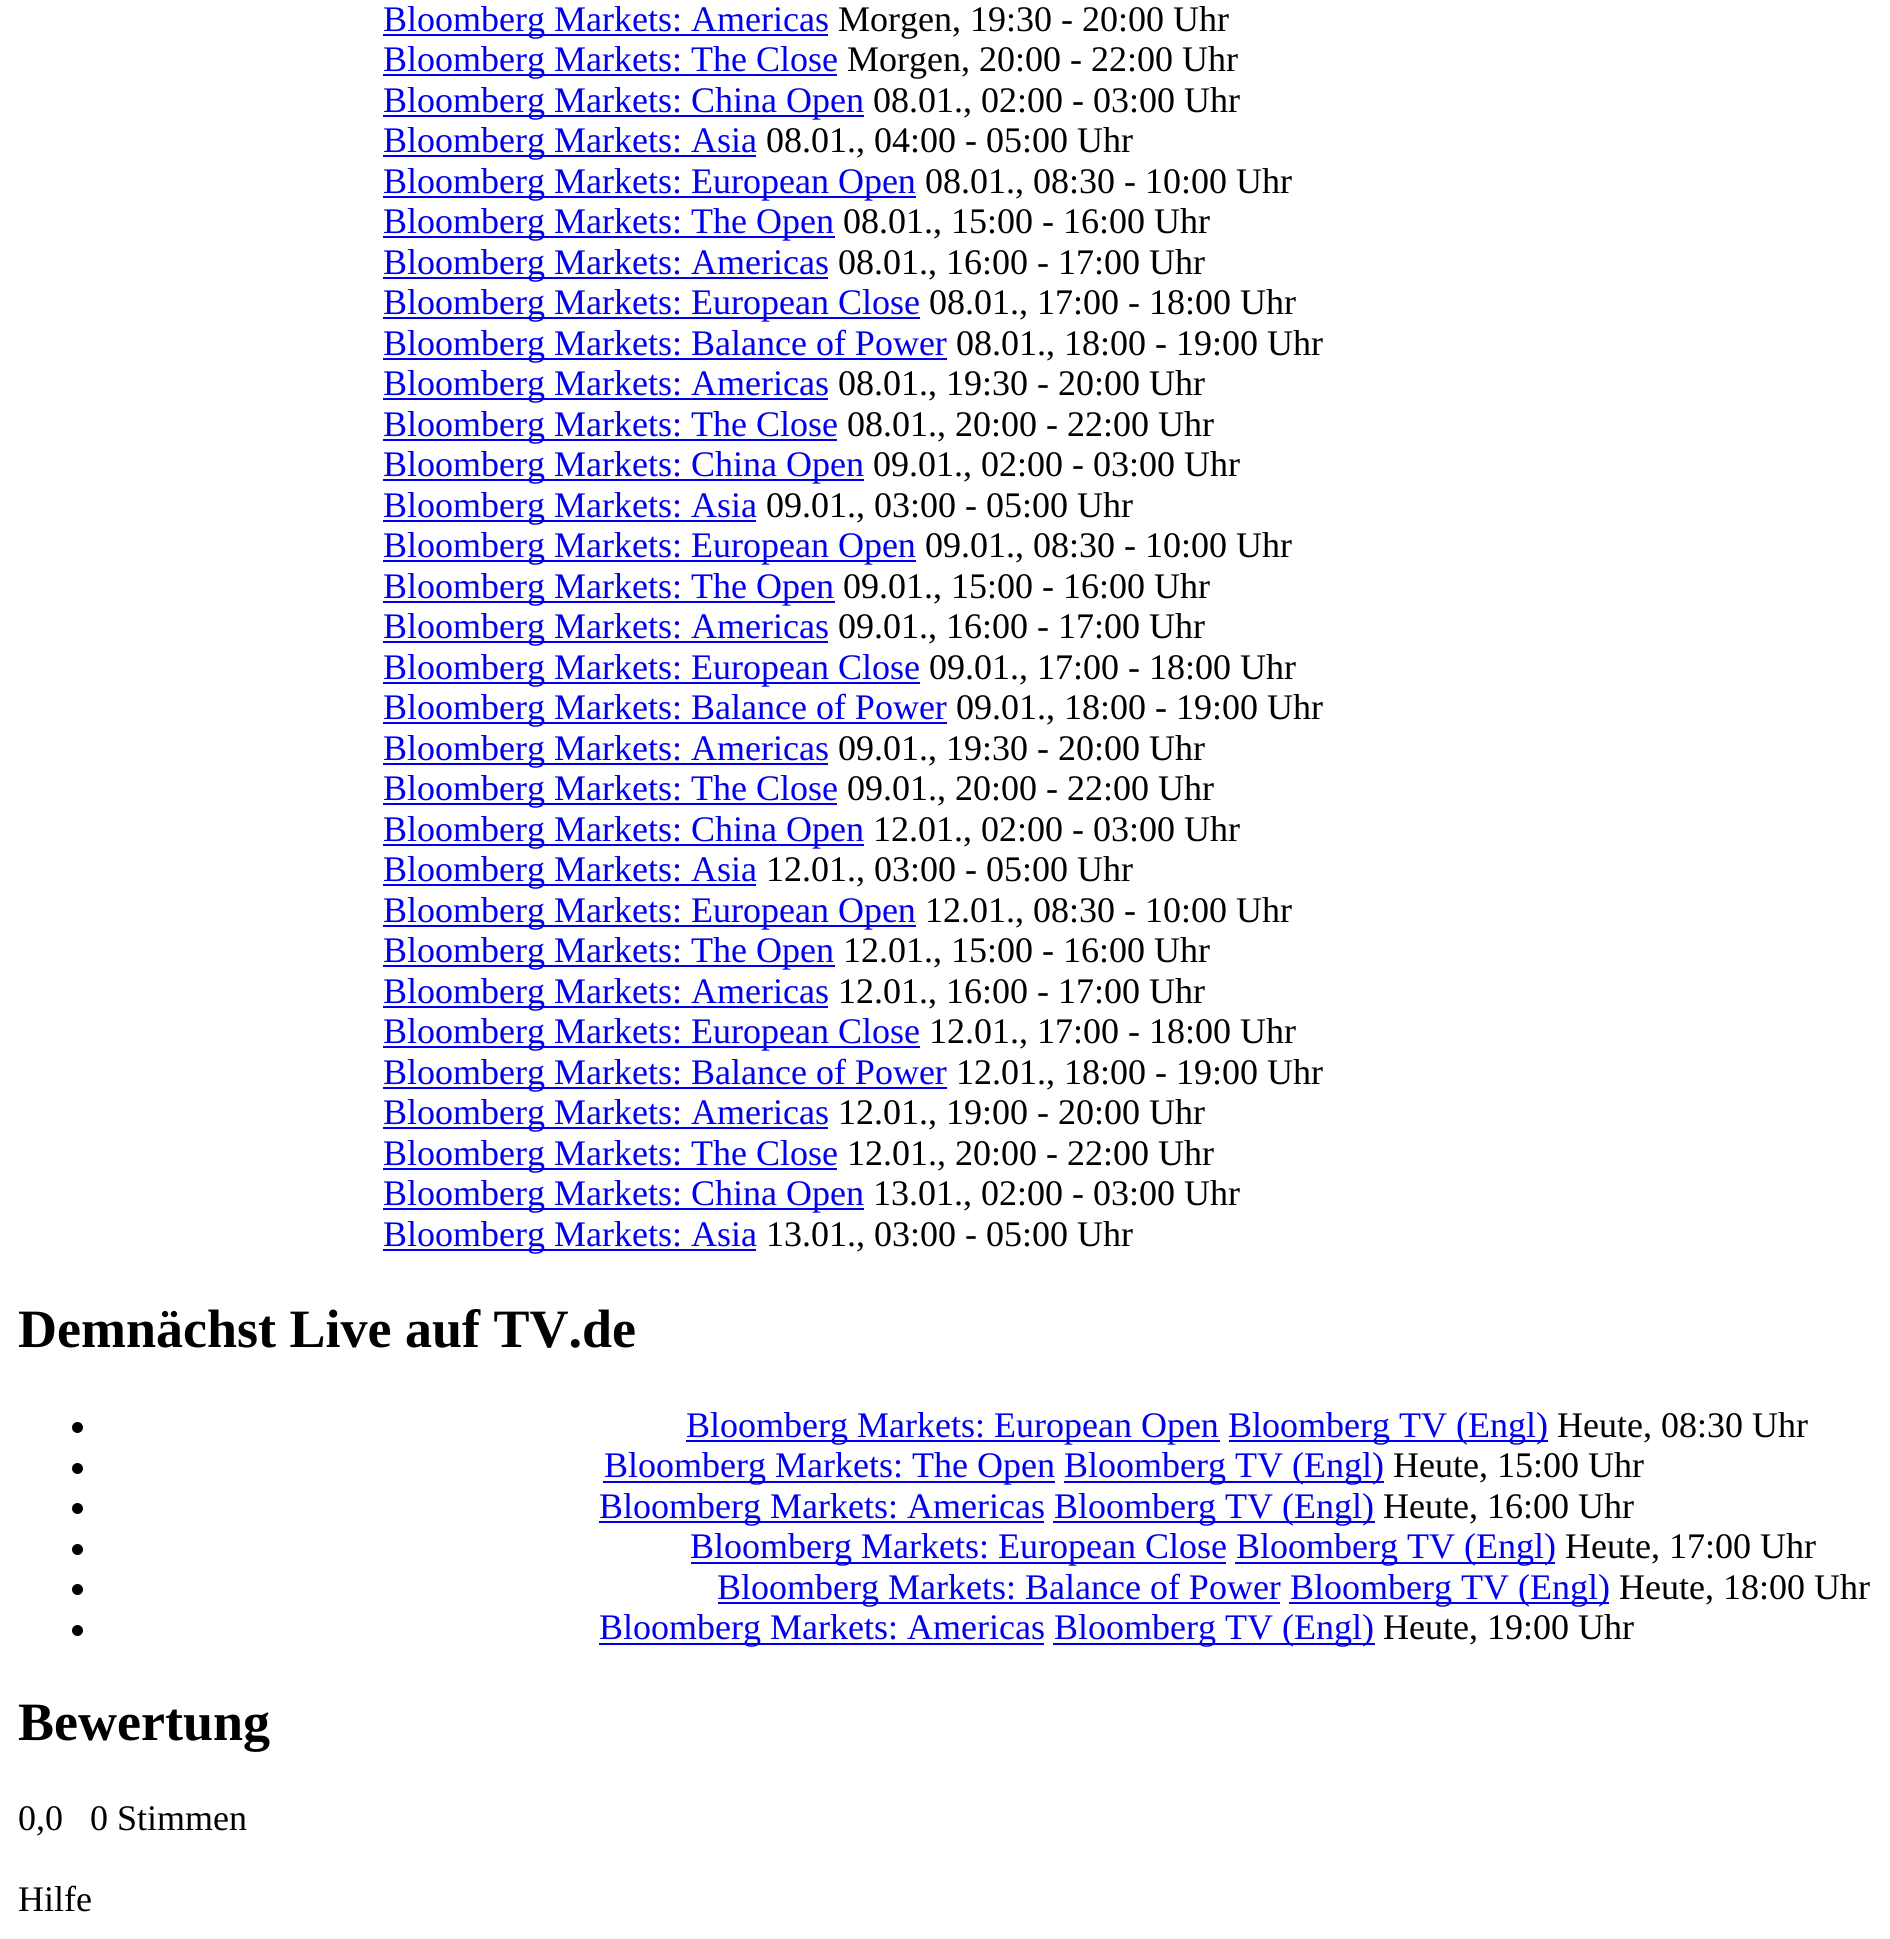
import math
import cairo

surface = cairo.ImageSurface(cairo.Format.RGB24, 1890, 1939)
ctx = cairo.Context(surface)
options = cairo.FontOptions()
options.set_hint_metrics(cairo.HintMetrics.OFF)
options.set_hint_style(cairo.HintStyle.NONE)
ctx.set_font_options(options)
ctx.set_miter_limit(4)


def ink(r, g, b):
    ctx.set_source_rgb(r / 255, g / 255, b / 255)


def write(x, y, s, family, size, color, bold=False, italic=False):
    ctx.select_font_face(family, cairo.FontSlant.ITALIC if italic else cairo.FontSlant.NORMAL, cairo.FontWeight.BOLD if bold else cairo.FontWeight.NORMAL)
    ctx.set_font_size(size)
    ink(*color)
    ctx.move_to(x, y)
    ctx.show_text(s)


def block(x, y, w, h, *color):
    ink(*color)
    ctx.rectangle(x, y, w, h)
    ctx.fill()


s1 = dict(family="Liberation Serif", size=36, color=(0, 0, 238))
s2 = dict(family="Liberation Serif", size=36, color=(0, 0, 0))
s3 = dict(family="Liberation Serif", size=54, color=(0, 0, 0), bold=True)

ink(255, 255, 255)
ctx.paint()
block(383, 34, 445, 2, 0, 0, 238)
write(383, 31, "Bloomberg Markets: Americas", **s1)
write(838, 31, "Morgen, 19:30 - 20:00 Uhr", **s2)
block(383, 74, 454, 2, 0, 0, 238)
write(383, 71, "Bloomberg Markets: The Close", **s1)
write(847, 71, "Morgen, 20:00 - 22:00 Uhr", **s2)
block(383, 115, 481, 2, 0, 0, 238)
write(383, 112, "Bloomberg Markets: China Open", **s1)
write(873, 112, "08.01., 02:00 - 03:00 Uhr", **s2)
block(383, 155, 373, 2, 0, 0, 238)
write(383, 152, "Bloomberg Markets: Asia", **s1)
write(766, 152, "08.01., 04:00 - 05:00 Uhr", **s2)
block(383, 196, 533, 2, 0, 0, 238)
write(383, 193, "Bloomberg Markets: European Open", **s1)
write(925, 193, "08.01., 08:30 - 10:00 Uhr", **s2)
block(383, 236, 452, 2, 0, 0, 238)
write(383, 233, "Bloomberg Markets: The Open", **s1)
write(843, 233, "08.01., 15:00 - 16:00 Uhr", **s2)
block(383, 277, 445, 2, 0, 0, 238)
write(383, 274, "Bloomberg Markets: Americas", **s1)
write(838, 274, "08.01., 16:00 - 17:00 Uhr", **s2)
block(383, 317, 537, 2, 0, 0, 238)
write(383, 314, "Bloomberg Markets: European Close", **s1)
write(929, 314, "08.01., 17:00 - 18:00 Uhr", **s2)
block(383, 358, 564, 2, 0, 0, 238)
write(383, 355, "Bloomberg Markets: Balance of Power", **s1)
write(956, 355, "08.01., 18:00 - 19:00 Uhr", **s2)
block(383, 398, 445, 2, 0, 0, 238)
write(383, 395, "Bloomberg Markets: Americas", **s1)
write(838, 395, "08.01., 19:30 - 20:00 Uhr", **s2)
block(383, 439, 454, 2, 0, 0, 238)
write(383, 436, "Bloomberg Markets: The Close", **s1)
write(847, 436, "08.01., 20:00 - 22:00 Uhr", **s2)
block(383, 479, 481, 2, 0, 0, 238)
write(383, 476, "Bloomberg Markets: China Open", **s1)
write(873, 476, "09.01., 02:00 - 03:00 Uhr", **s2)
block(383, 520, 373, 2, 0, 0, 238)
write(383, 517, "Bloomberg Markets: Asia", **s1)
write(766, 517, "09.01., 03:00 - 05:00 Uhr", **s2)
block(383, 560, 533, 2, 0, 0, 238)
write(383, 557, "Bloomberg Markets: European Open", **s1)
write(925, 557, "09.01., 08:30 - 10:00 Uhr", **s2)
block(383, 601, 452, 2, 0, 0, 238)
write(383, 598, "Bloomberg Markets: The Open", **s1)
write(843, 598, "09.01., 15:00 - 16:00 Uhr", **s2)
block(383, 641, 445, 2, 0, 0, 238)
write(383, 638, "Bloomberg Markets: Americas", **s1)
write(838, 638, "09.01., 16:00 - 17:00 Uhr", **s2)
block(383, 682, 537, 2, 0, 0, 238)
write(383, 679, "Bloomberg Markets: European Close", **s1)
write(929, 679, "09.01., 17:00 - 18:00 Uhr", **s2)
block(383, 722, 564, 2, 0, 0, 238)
write(383, 719, "Bloomberg Markets: Balance of Power", **s1)
write(956, 719, "09.01., 18:00 - 19:00 Uhr", **s2)
block(383, 763, 445, 2, 0, 0, 238)
write(383, 760, "Bloomberg Markets: Americas", **s1)
write(838, 760, "09.01., 19:30 - 20:00 Uhr", **s2)
block(383, 803, 454, 2, 0, 0, 238)
write(383, 800, "Bloomberg Markets: The Close", **s1)
write(847, 800, "09.01., 20:00 - 22:00 Uhr", **s2)
block(383, 844, 481, 2, 0, 0, 238)
write(383, 841, "Bloomberg Markets: China Open", **s1)
write(873, 841, "12.01., 02:00 - 03:00 Uhr", **s2)
block(383, 884, 373, 2, 0, 0, 238)
write(383, 881, "Bloomberg Markets: Asia", **s1)
write(766, 881, "12.01., 03:00 - 05:00 Uhr", **s2)
block(383, 925, 533, 2, 0, 0, 238)
write(383, 922, "Bloomberg Markets: European Open", **s1)
write(925, 922, "12.01., 08:30 - 10:00 Uhr", **s2)
block(383, 965, 452, 2, 0, 0, 238)
write(383, 962, "Bloomberg Markets: The Open", **s1)
write(843, 962, "12.01., 15:00 - 16:00 Uhr", **s2)
block(383, 1006, 445, 2, 0, 0, 238)
write(383, 1003, "Bloomberg Markets: Americas", **s1)
write(838, 1003, "12.01., 16:00 - 17:00 Uhr", **s2)
block(383, 1046, 537, 2, 0, 0, 238)
write(383, 1043, "Bloomberg Markets: European Close", **s1)
write(929, 1043, "12.01., 17:00 - 18:00 Uhr", **s2)
block(383, 1087, 564, 2, 0, 0, 238)
write(383, 1084, "Bloomberg Markets: Balance of Power", **s1)
write(956, 1084, "12.01., 18:00 - 19:00 Uhr", **s2)
block(383, 1127, 445, 2, 0, 0, 238)
write(383, 1124, "Bloomberg Markets: Americas", **s1)
write(838, 1124, "12.01., 19:00 - 20:00 Uhr", **s2)
block(383, 1168, 454, 2, 0, 0, 238)
write(383, 1165, "Bloomberg Markets: The Close", **s1)
write(847, 1165, "12.01., 20:00 - 22:00 Uhr", **s2)
block(383, 1208, 481, 2, 0, 0, 238)
write(383, 1205, "Bloomberg Markets: China Open", **s1)
write(873, 1205, "13.01., 02:00 - 03:00 Uhr", **s2)
block(383, 1249, 373, 2, 0, 0, 238)
write(383, 1246, "Bloomberg Markets: Asia", **s1)
write(766, 1246, "13.01., 03:00 - 05:00 Uhr", **s2)
write(18, 1347, "Demnächst Live auf TV.de", **s3)
ctx.new_path()
ctx.arc(77.5, 1427.5, 5.5, 0, 2 * math.pi)
ctx.fill()
block(686, 1440, 534, 2, 0, 0, 238)
write(686, 1437, "Bloomberg Markets: European Open", **s1)
block(1229, 1440, 319, 2, 0, 0, 238)
write(1228, 1437, "Bloomberg TV (Engl)", **s1)
write(1557, 1437, "Heute, 08:30 Uhr", **s2)
ctx.new_path()
ctx.arc(77.5, 1468.5, 5.5, 0, 2 * math.pi)
ctx.fill()
block(603, 1481, 452, 2, 0, 0, 238)
write(604, 1477, "Bloomberg Markets: The Open", **s1)
block(1064, 1481, 320, 2, 0, 0, 238)
write(1064, 1477, "Bloomberg TV (Engl)", **s1)
write(1393, 1477, "Heute, 15:00 Uhr", **s2)
ctx.new_path()
ctx.arc(77.5, 1508.5, 5.5, 0, 2 * math.pi)
ctx.fill()
block(599, 1521, 445, 2, 0, 0, 238)
write(599, 1518, "Bloomberg Markets: Americas", **s1)
block(1053, 1521, 322, 2, 0, 0, 238)
write(1054, 1518, "Bloomberg TV (Engl)", **s1)
write(1383, 1518, "Heute, 16:00 Uhr", **s2)
ctx.new_path()
ctx.arc(77.5, 1549.5, 5.5, 0, 2 * math.pi)
ctx.fill()
block(691, 1562, 535, 2, 0, 0, 238)
write(690, 1558, "Bloomberg Markets: European Close", **s1)
block(1235, 1562, 320, 2, 0, 0, 238)
write(1236, 1558, "Bloomberg TV (Engl)", **s1)
write(1565, 1558, "Heute, 17:00 Uhr", **s2)
ctx.new_path()
ctx.arc(77.5, 1589.5, 5.5, 0, 2 * math.pi)
ctx.fill()
block(718, 1602, 562, 2, 0, 0, 238)
write(717, 1599, "Bloomberg Markets: Balance of Power", **s1)
block(1289, 1602, 320, 2, 0, 0, 238)
write(1290, 1599, "Bloomberg TV (Engl)", **s1)
write(1619, 1599, "Heute, 18:00 Uhr", **s2)
ctx.new_path()
ctx.arc(77.5, 1630.5, 5.5, 0, 2 * math.pi)
ctx.fill()
block(599, 1643, 445, 2, 0, 0, 238)
write(599, 1639, "Bloomberg Markets: Americas", **s1)
block(1053, 1643, 322, 2, 0, 0, 238)
write(1054, 1639, "Bloomberg TV (Engl)", **s1)
write(1383, 1639, "Heute, 19:00 Uhr", **s2)
write(18, 1740, "Bewertung", **s3)
write(18, 1830, "0,0", **s2)
write(90, 1830, "0 Stimmen", **s2)
write(18, 1911, "Hilfe", **s2)
surface.write_to_png("screenshot.png")
